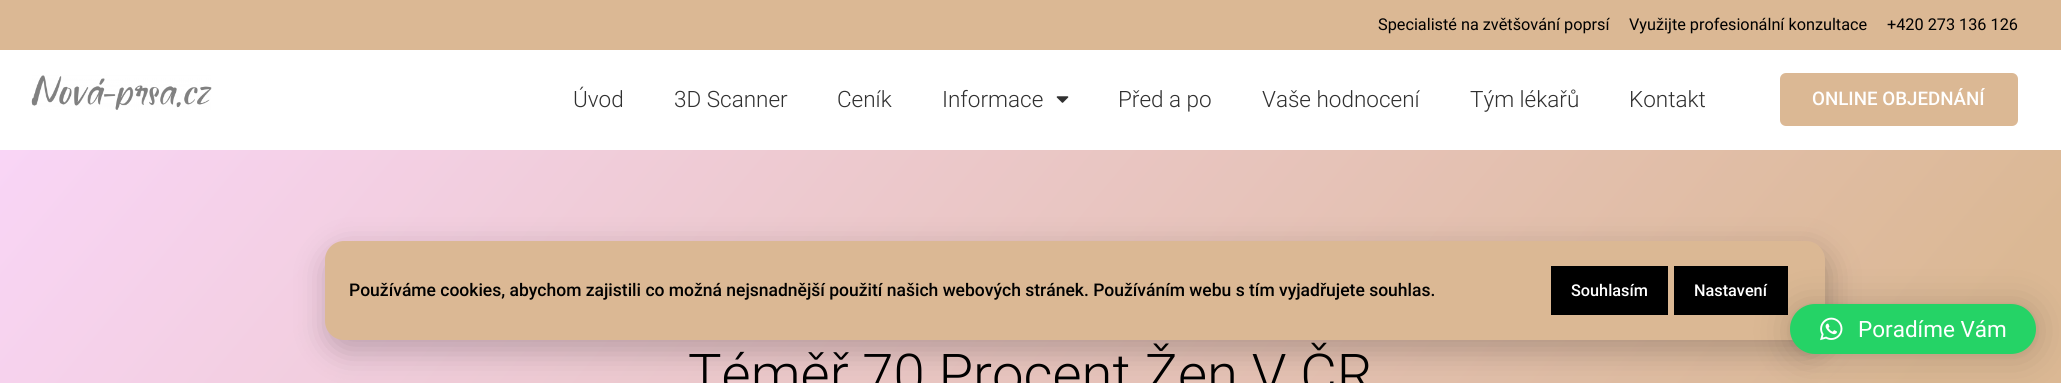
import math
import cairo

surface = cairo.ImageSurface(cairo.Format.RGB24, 2061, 383)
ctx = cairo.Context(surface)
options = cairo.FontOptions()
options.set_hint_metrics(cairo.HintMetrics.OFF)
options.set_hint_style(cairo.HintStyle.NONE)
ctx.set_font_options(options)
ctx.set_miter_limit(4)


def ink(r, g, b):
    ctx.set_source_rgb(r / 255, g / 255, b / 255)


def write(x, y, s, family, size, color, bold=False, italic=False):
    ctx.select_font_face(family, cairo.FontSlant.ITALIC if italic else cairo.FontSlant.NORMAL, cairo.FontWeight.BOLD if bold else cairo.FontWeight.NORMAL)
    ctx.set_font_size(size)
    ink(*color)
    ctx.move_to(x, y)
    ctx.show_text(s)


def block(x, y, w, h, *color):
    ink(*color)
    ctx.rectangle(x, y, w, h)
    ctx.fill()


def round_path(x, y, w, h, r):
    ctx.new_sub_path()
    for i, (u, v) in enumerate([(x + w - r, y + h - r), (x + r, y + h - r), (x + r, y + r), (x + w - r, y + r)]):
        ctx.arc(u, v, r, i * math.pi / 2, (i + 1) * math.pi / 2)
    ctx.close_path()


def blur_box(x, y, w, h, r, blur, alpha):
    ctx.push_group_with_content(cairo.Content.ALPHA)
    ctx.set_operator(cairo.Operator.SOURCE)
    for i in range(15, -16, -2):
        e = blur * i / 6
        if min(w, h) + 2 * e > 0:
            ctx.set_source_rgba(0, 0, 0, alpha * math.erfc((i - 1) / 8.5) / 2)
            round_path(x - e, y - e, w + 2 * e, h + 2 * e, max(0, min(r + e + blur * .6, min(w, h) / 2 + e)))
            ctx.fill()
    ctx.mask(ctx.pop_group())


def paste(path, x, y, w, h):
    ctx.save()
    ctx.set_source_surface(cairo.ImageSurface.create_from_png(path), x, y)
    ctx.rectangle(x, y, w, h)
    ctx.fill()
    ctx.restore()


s1 = dict(family="Roboto", size=16.25, color=(0, 0, 0))
s2 = dict(family="Roboto Light", size=22.5, color=(48, 48, 48))
s3 = dict(family="Roboto Medium", size=18.75, color=(255, 255, 255))
s4 = dict(family="Roboto Medium", size=17.5, color=(0, 0, 0))
s5 = dict(family="Roboto Medium", size=16.25, color=(255, 255, 255))
s6 = dict(family="Roboto", size=22.5, color=(255, 255, 255))
s7 = dict(family="Roboto Light", size=56.25, color=(0, 0, 0))

ink(255, 255, 255)
ctx.paint()
block(0, 0, 2061, 50, 219, 184, 148)
write(1378, 30, "Specialisté na zvětšování poprsí", **s1)
write(1629, 30, "Využijte profesionální konzultace", **s1)
write(1887, 30, "+420 273 136 126", **s1)
paste("pic1.png", 31, 75, 181, 35)
write(573, 107, "Úvod", **s2)
write(674, 107, "3D Scanner", **s2)
write(837, 107, "Ceník", **s2)
write(942, 107, "Informace", **s2)
paste("pic2.png", 1056, 96, 13, 7)
write(1118, 107, "Před a po", **s2)
write(1262, 107, "Vaše hodnocení", **s2)
write(1470, 107, "Tým lékařů", **s2)
write(1629, 107, "Kontakt", **s2)
ink(219, 184, 148)
round_path(1781.5, 74.5, 235, 50, 4.5)
ctx.fill_preserve()
ctx.set_line_width(3)
ctx.stroke()
write(1812, 105, "ONLINE OBJEDNÁNÍ", **s3)
gradient = cairo.LinearGradient(331, -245, 1730, 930)
gradient.add_color_stop_rgba(0, 0.976, 0.835, 0.965, 1)
gradient.add_color_stop_rgba(0.89, 0.859, 0.722, 0.58, 1)
ctx.set_source(gradient)
ctx.rectangle(0, 150, 2061, 233)
ctx.fill()
ink(0, 0, 0)
blur_box(324, 248, 1507, 106, 23, 14.5, 0.2)
ink(219, 184, 148)
round_path(325, 241, 1500, 99, 19)
ctx.fill()
write(349, 296, "Používáme cookies, abychom zajistili co možná nejsnadnější použití našich webových stránek. Používáním webu s tím vyjadřujete souhlas.", **s4)
block(1551, 266, 117, 49, 0, 0, 0)
write(1571, 296, "Souhlasím", **s5)
block(1674, 266, 114, 49, 0, 0, 0)
write(1694, 296, "Nastavení", **s5)
ink(0, 0, 0)
blur_box(1790, 306, 246, 50, 25, 20, 0.16)
blur_box(1790, 305, 246, 50, 25, 4, 0.06)
ink(37, 211, 102)
round_path(1790, 304, 246, 50, 25)
ctx.fill()
paste("pic3.png", 1820, 317, 23, 24)
write(1858, 337, "Poradíme Vám", **s6)
write(688, 394, "Téměř 70 Procent Žen V ČR", **s7)
surface.write_to_png("screenshot.png")
